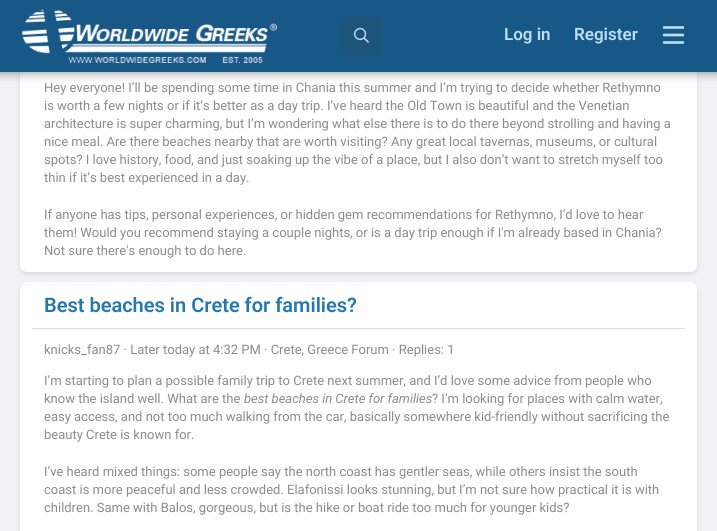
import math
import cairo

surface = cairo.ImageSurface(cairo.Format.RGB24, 717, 531)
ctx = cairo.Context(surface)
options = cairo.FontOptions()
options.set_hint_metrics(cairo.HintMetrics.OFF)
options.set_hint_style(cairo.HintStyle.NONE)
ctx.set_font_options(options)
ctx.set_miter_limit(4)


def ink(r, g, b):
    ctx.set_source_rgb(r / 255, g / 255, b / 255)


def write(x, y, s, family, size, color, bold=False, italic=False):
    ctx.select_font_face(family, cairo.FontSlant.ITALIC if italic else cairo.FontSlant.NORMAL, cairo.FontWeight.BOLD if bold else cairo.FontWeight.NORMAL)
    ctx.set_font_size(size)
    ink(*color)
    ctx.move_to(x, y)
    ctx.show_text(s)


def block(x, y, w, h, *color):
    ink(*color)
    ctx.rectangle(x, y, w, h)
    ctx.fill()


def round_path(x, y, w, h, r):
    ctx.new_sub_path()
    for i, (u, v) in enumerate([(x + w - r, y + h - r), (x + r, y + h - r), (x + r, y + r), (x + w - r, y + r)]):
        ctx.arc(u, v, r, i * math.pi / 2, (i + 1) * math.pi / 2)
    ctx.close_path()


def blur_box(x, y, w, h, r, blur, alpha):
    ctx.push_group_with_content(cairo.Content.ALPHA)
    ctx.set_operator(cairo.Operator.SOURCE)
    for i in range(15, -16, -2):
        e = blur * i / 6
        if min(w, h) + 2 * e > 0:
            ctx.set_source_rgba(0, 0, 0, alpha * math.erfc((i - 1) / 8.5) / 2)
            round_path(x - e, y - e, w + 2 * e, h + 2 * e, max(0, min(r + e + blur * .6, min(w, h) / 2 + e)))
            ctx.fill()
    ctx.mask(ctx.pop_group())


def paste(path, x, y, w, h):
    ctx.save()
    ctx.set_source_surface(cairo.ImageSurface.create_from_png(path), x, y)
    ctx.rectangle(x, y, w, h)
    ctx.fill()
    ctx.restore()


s1 = dict(family="Roboto SemiBold", size=17, color=(188, 222, 245))
s2 = dict(family="Roboto", size=13, color=(140, 140, 140))
s3 = dict(family="Roboto SemiBold", size=20, color=(37, 119, 177))
s4 = dict(family="Roboto", size=13, color=(140, 140, 140), italic=True)

ink(240, 243, 245)
ctx.paint()
ink(0, 0, 0)
blur_box(20, -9, 677, 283, 7, 2, 0.11)
ink(254, 254, 254)
round_path(20, -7, 677, 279, 7)
ctx.fill()
ink(0, 0, 0)
blur_box(-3, -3, 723, 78, 0, 4, 0.3)
block(0, 0, 717, 72, 24, 88, 134)
paste("pic1.png", 21, 9, 256, 55)
ink(29, 84, 123)
round_path(340, 17, 43, 38, 7)
ctx.fill()
paste("pic2.png", 354, 27, 15, 16)
write(504, 40, "Log in", **s1)
write(574, 40, "Register", **s1)
paste("pic3.png", 663, 26, 21, 18)
write(44, 92, "Hey everyone! I’ll be spending some time in Chania this summer and I’m trying to decide whether Rethymno", **s2)
write(44, 110, "is worth a few nights or if it’s better as a day trip. I’ve heard the Old Town is beautiful and the Venetian", **s2)
write(44, 128, "architecture is super charming, but I’m wondering what else there is to do there beyond strolling and having a", **s2)
write(44, 146, "nice meal. Are there beaches nearby that are worth visiting? Any great local tavernas, museums, or cultural", **s2)
write(44, 164, "spots? I love history, food, and just soaking up the vibe of a place, but I also don’t want to stretch myself too", **s2)
write(44, 182, "thin if it’s best experienced in a day.", **s2)
write(44, 219, "If anyone has tips, personal experiences, or hidden gem recommendations for Rethymno, I’d love to hear", **s2)
write(44, 237, "them! Would you recommend staying a couple nights, or is a day trip enough if I'm already based in Chania?", **s2)
write(44, 255, "Not sure there's enough to do here.", **s2)
ink(0, 0, 0)
blur_box(20, 284, 677, 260, 7, 2, 0.11)
ink(254, 254, 254)
round_path(20, 282, 677, 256, 7)
ctx.fill()
block(32, 328, 653, 1, 223, 223, 223)
write(44, 312, "Best beaches in Crete for families?", **s3)
write(44, 354, "knicks_fan87 · Later today at 4:32 PM · Crete, Greece Forum · Replies: 1", **s2)
write(44, 385, "I’m starting to plan a possible family trip to Crete next summer, and I’d love some advice from people who", **s2)
write(44, 403, "know the island well. What are the", **s2)
write(244, 403, "best beaches in Crete for families", **s4)
write(432, 403, "? I’m looking for places with calm water,", **s2)
write(44, 421, "easy access, and not too much walking from the car, basically somewhere kid-friendly without sacrificing the", **s2)
write(44, 439, "beauty Crete is known for.", **s2)
write(44, 476, "I’ve heard mixed things: some people say the north coast has gentler seas, while others insist the south", **s2)
write(44, 494, "coast is more peaceful and less crowded. Elafonissi looks stunning, but I’m not sure how practical it is with", **s2)
write(44, 512, "children. Same with Balos, gorgeous, but is the hike or boat ride too much for younger kids?", **s2)
surface.write_to_png("screenshot.png")
